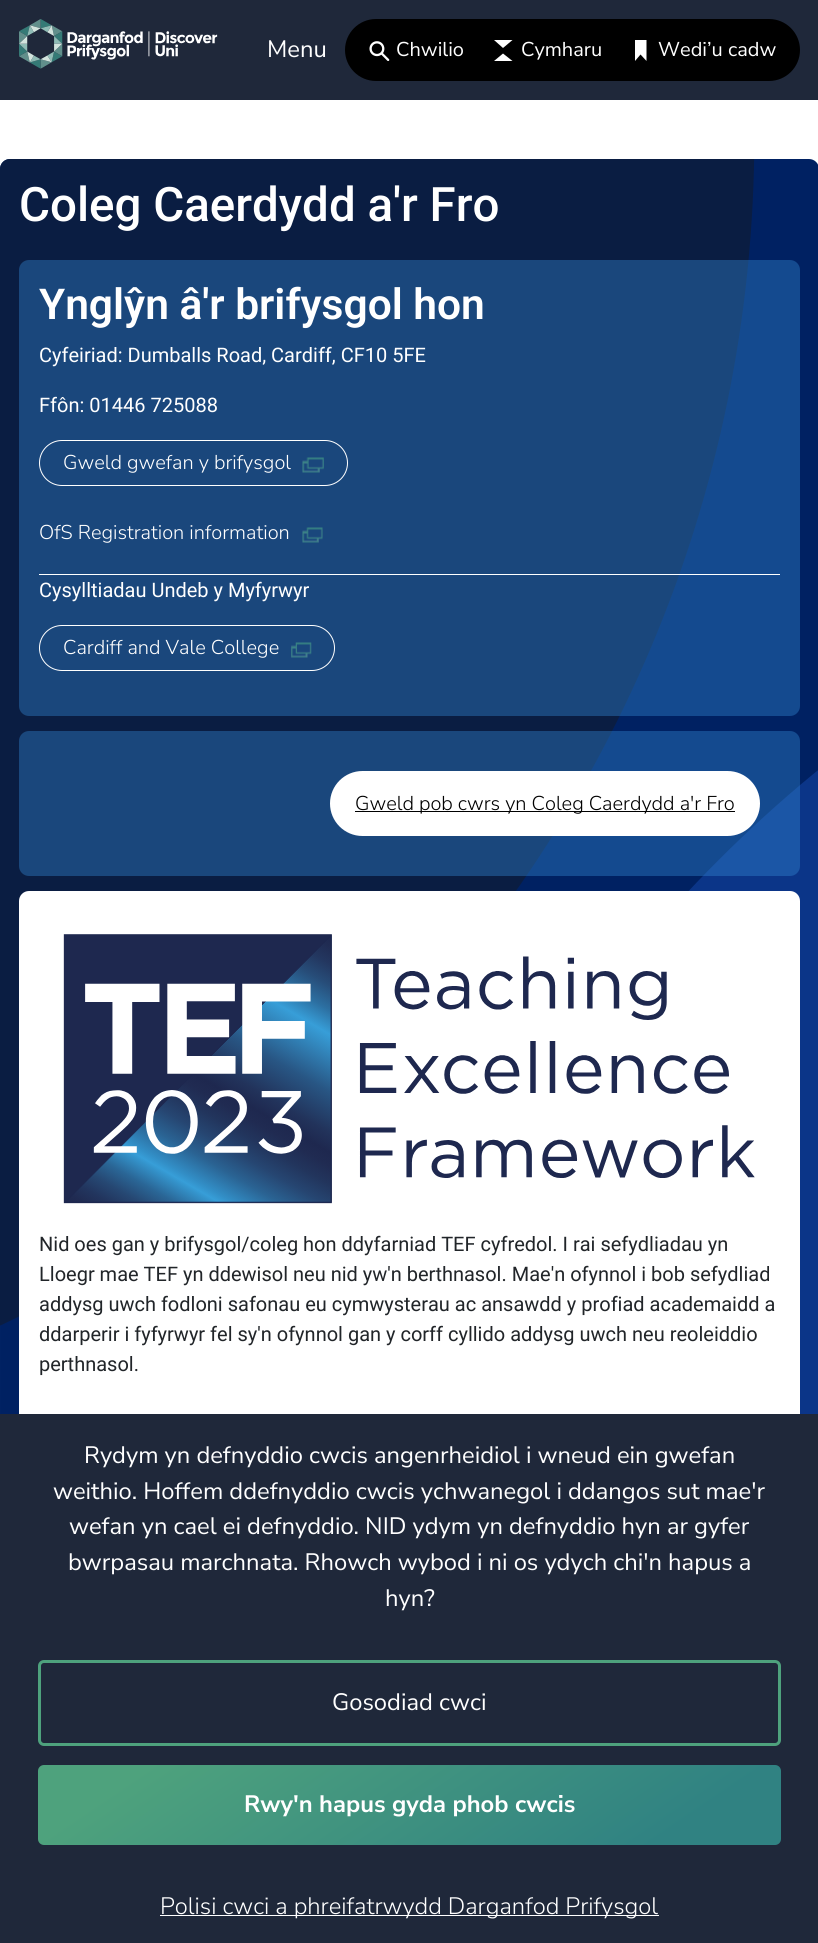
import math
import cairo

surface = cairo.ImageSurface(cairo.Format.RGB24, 818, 1943)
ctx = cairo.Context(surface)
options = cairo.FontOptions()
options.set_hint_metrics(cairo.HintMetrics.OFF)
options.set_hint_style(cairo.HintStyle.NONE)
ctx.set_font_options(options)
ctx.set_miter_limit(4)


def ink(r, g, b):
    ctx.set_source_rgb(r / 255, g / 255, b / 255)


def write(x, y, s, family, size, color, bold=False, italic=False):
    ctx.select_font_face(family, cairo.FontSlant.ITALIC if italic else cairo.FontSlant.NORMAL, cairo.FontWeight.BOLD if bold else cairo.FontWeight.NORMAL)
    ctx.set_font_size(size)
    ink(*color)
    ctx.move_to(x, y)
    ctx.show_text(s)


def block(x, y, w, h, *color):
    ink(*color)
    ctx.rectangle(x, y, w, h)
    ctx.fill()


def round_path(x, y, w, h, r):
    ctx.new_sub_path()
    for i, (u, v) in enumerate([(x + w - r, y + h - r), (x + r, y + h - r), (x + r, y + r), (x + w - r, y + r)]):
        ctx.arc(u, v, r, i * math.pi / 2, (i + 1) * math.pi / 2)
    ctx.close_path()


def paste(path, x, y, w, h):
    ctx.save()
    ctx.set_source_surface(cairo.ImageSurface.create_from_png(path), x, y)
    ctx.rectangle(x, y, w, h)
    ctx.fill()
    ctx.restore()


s1 = dict(family="Nunito Sans", size=23.75, color=(255, 255, 255))
s2 = dict(family="Nunito Sans", size=20, color=(255, 255, 255))
s3 = dict(family="Roboto Medium", size=47.5, color=(255, 255, 255))
s4 = dict(family="Roboto SemiBold", size=42.5, color=(255, 255, 255))
s5 = dict(family="Roboto", size=20, color=(255, 255, 255))
s6 = dict(family="Nunito Sans Light", size=20, color=(255, 255, 255))
s7 = dict(family="Nunito Sans Light", size=20, color=(0, 0, 0))
s8 = dict(family="Roboto", size=20, color=(33, 37, 41))
s9 = dict(family="Nunito Sans", size=23.75, color=(255, 255, 255), bold=True)
s10 = dict(family="Nunito Sans Light", size=23.75, color=(255, 255, 255))

ink(255, 255, 255)
ctx.paint()
block(0, 0, 818, 100, 31, 40, 58)
paste("pic1.png", 19, 19, 199, 50)
write(267, 57, "Menu", **s1)
ink(0, 0, 0)
round_path(345, 19, 455, 62, 31)
ctx.fill()
paste("pic2.png", 369, 41, 21, 20)
write(396, 56, "Chwilio", **s2)
ctx.set_fill_rule(cairo.FillRule.EVEN_ODD)
ctx.new_path()
ctx.move_to(503, 53.5)
ctx.line_to(512.5, 61)
ctx.line_to(494, 61)
ctx.close_path()
ctx.move_to(512.5, 40)
ctx.line_to(503, 48)
ctx.line_to(494, 40)
ctx.close_path()
ctx.fill()
write(521, 56, "Cymharu", **s2)
ctx.set_fill_rule(cairo.FillRule.WINDING)
ctx.new_path()
ctx.move_to(635, 61)
ctx.line_to(640.5, 54.5)
ctx.line_to(646.5, 61)
ctx.line_to(646.5, 40)
ctx.line_to(635, 40)
ctx.close_path()
ctx.fill()
write(658, 56, "Wedi’u cadw", **s2)
paste("pic3.png", 0, 159, 818, 1255)
write(19, 221, "Coleg Caerdydd a'r Fro", **s3)
ctx.set_source_rgba(0.204, 0.537, 0.827, 0.4)
round_path(19, 260, 781, 456, 10)
ctx.fill()
block(39, 574, 741, 1, 255, 255, 255)
write(39, 319, "Ynglŷn â'r brifysgol hon", **s4)
write(39, 362, "Cyfeiriad: Dumballs Road, Cardiff, CF10 5FE", **s5)
write(39, 412, "Ffôn: 01446 725088", **s5)
round_path(39.5, 440.5, 308, 45, 22.5)
ctx.set_line_width(1)
ctx.stroke()
write(63, 469, "Gweld gwefan y brifysgol", **s6)
paste("pic4.png", 302, 457, 22, 16)
write(39, 539, "OfS Registration information", **s6)
paste("pic5.png", 302, 527, 21, 16)
write(39, 597, "Cysylltiadau Undeb y Myfyrwyr", **s5)
round_path(39.5, 625.5, 295, 45, 22.5)
ctx.stroke()
write(63, 654, "Cardiff and Vale College", **s6)
paste("pic6.png", 291, 642, 21, 16)
ctx.set_source_rgba(0.204, 0.537, 0.827, 0.4)
round_path(19, 731, 781, 145, 10)
ctx.fill()
ink(255, 255, 255)
round_path(330, 771, 430, 65, 32.5)
ctx.fill()
block(355, 811, 380, 1, 0, 0, 0)
write(355, 810, "Gweld pob cwrs yn Coleg Caerdydd a'r Fro", **s7)
ink(255, 255, 255)
round_path(19, 891, 781, 694, 10)
ctx.fill()
paste("pic7.png", 63, 934, 692, 270)
write(39, 1251, "Nid oes gan y brifysgol/coleg hon ddyfarniad TEF cyfredol. I rai sefydliadau yn", **s8)
write(39, 1281, "Lloegr mae TEF yn ddewisol neu nid yw'n berthnasol. Mae'n ofynnol i bob sefydliad", **s8)
write(39, 1311, "addysg uwch fodloni safonau eu cymwysterau ac ansawdd y profiad academaidd a", **s8)
write(39, 1341, "ddarperir i fyfyrwyr fel sy'n ofynnol gan y corff cyllido addysg uwch neu reoleiddio", **s8)
write(39, 1371, "perthnasol.", **s8)
block(0, 1414, 818, 529, 31, 40, 58)
write(84, 1463, "Rydym yn defnyddio cwcis angenrheidiol i wneud ein gwefan", **s1)
write(53, 1499, "weithio. Hoffem ddefnyddio cwcis ychwanegol i ddangos sut mae'r", **s1)
write(69, 1534, "wefan yn cael ei defnyddio. NID ydym yn defnyddio hyn ar gyfer", **s1)
write(68, 1570, "bwrpasau marchnata. Rhowch wybod i ni os ydych chi'n hapus a", **s1)
write(385, 1606, "hyn?", **s1)
round_path(39.5, 1661.5, 740, 83, 4.5)
ink(78, 162, 125)
ctx.set_line_width(3)
ctx.stroke()
write(332, 1710, "Gosodiad cwci", **s1)
gradient = cairo.LinearGradient(274, 1605, 545, 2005)
gradient.add_color_stop_rgba(0.13, 0.306, 0.635, 0.49, 1)
gradient.add_color_stop_rgba(0.85, 0.188, 0.51, 0.51, 1)
ctx.set_source(gradient)
round_path(38, 1765, 743, 80, 6)
ctx.fill()
write(244, 1812, "Rwy'n hapus gyda phob cwcis", **s9)
block(160, 1915, 499, 1, 255, 255, 255)
write(160, 1914, "Polisi cwci a phreifatrwydd Darganfod Prifysgol", **s10)
surface.write_to_png("screenshot.png")
